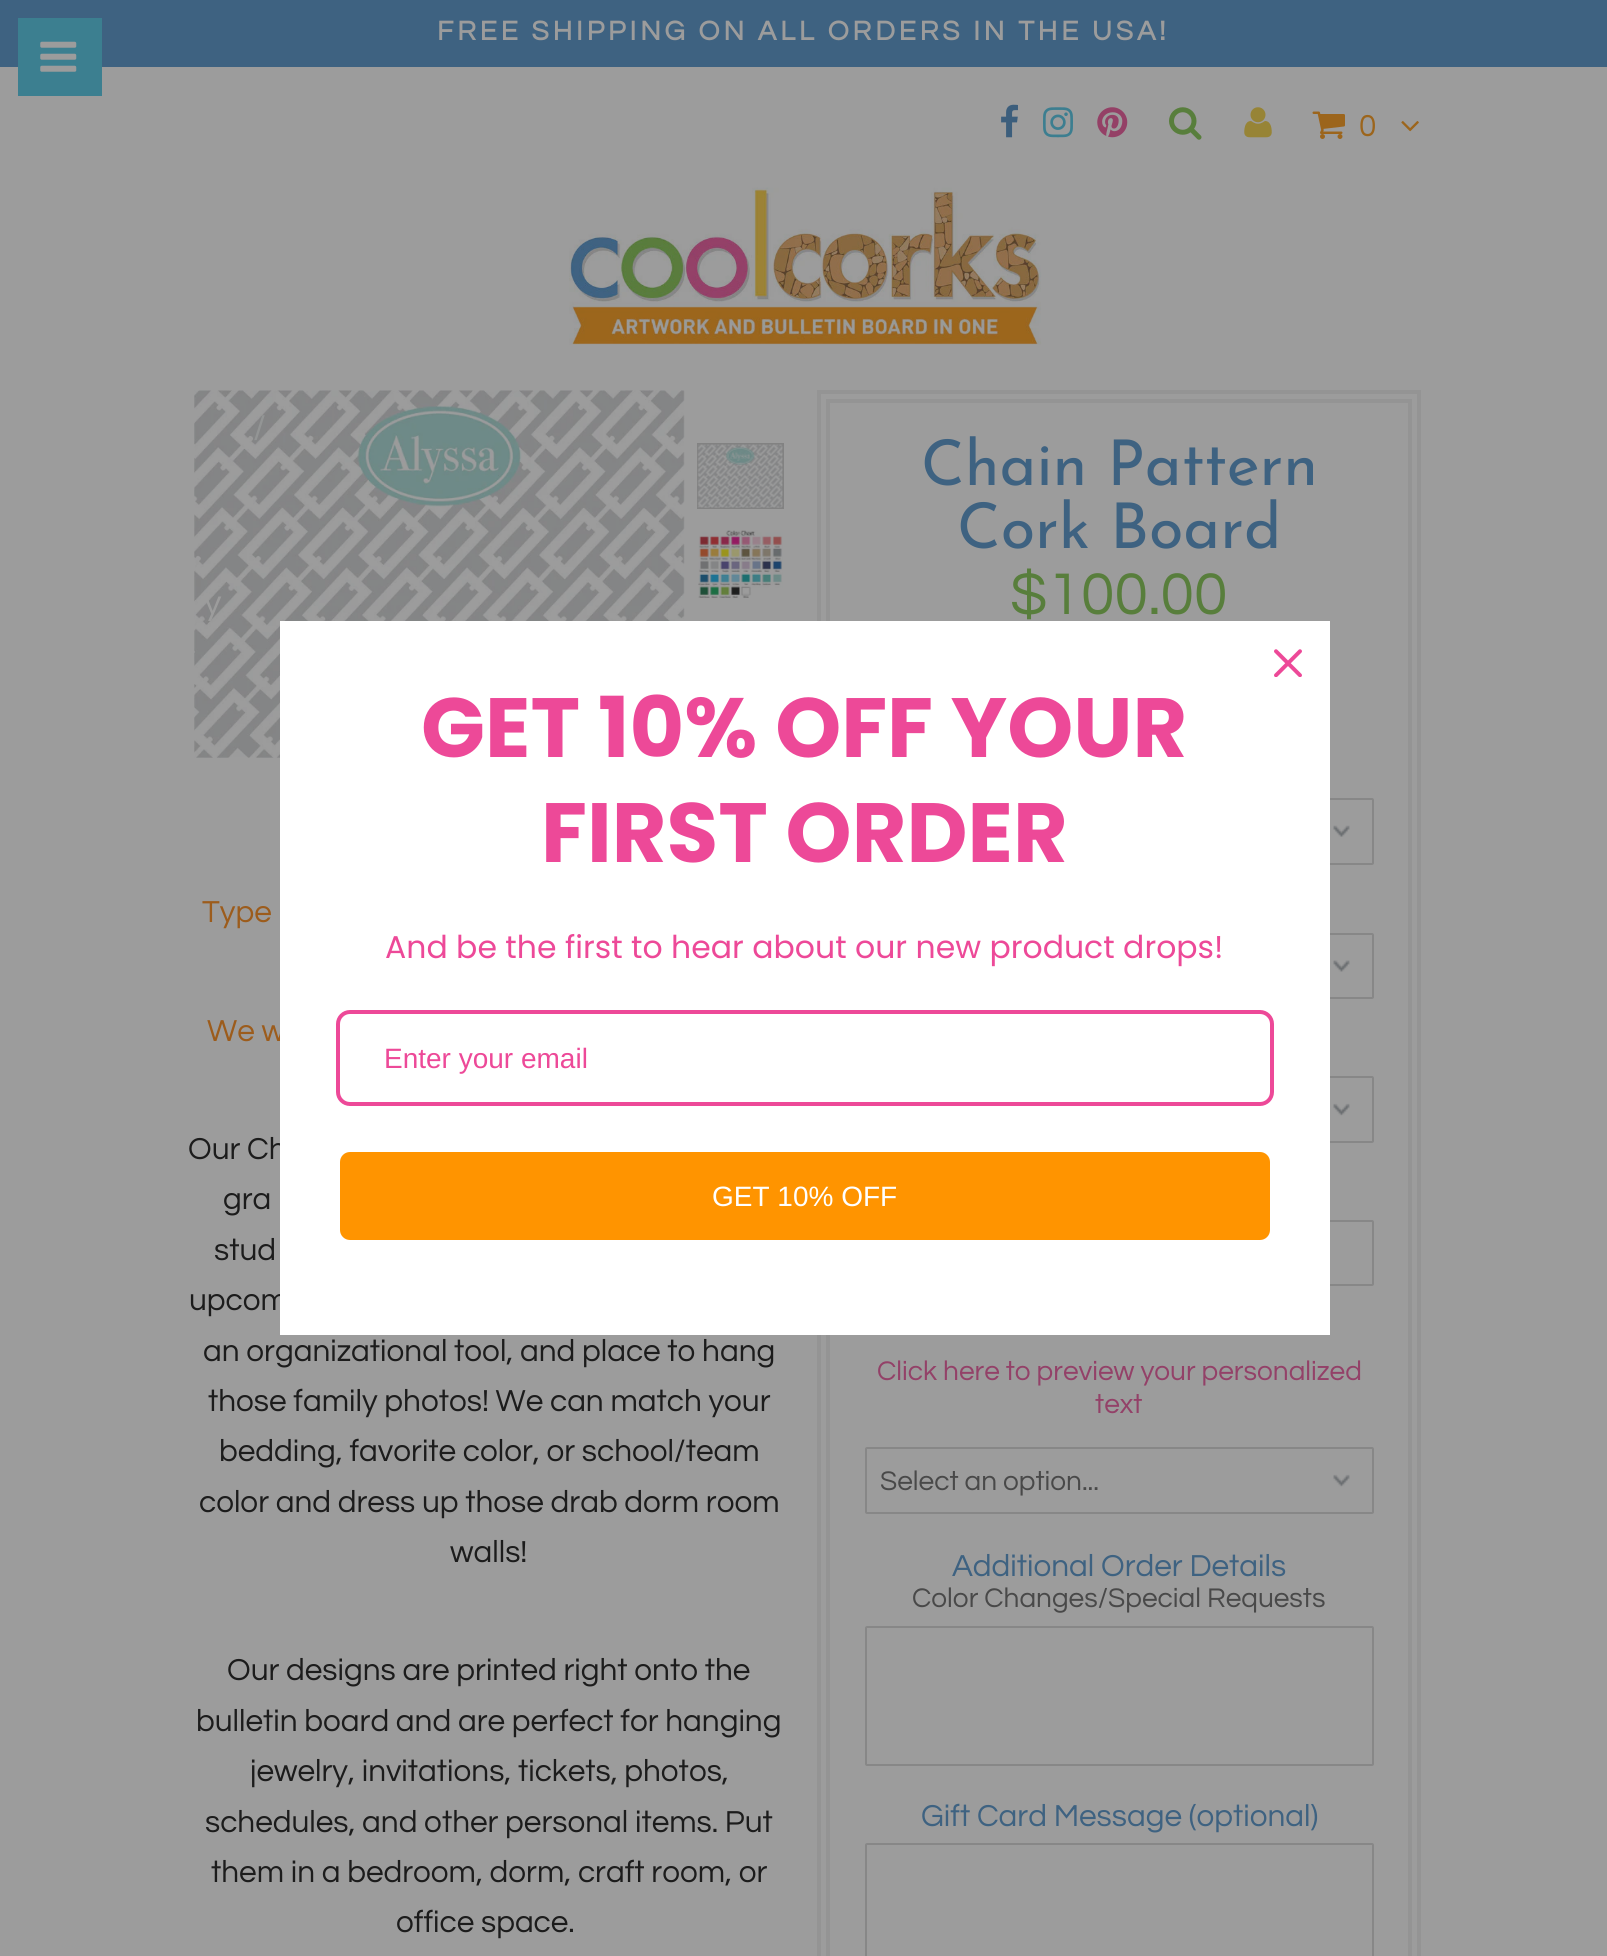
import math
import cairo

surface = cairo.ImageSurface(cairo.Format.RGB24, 1607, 1956)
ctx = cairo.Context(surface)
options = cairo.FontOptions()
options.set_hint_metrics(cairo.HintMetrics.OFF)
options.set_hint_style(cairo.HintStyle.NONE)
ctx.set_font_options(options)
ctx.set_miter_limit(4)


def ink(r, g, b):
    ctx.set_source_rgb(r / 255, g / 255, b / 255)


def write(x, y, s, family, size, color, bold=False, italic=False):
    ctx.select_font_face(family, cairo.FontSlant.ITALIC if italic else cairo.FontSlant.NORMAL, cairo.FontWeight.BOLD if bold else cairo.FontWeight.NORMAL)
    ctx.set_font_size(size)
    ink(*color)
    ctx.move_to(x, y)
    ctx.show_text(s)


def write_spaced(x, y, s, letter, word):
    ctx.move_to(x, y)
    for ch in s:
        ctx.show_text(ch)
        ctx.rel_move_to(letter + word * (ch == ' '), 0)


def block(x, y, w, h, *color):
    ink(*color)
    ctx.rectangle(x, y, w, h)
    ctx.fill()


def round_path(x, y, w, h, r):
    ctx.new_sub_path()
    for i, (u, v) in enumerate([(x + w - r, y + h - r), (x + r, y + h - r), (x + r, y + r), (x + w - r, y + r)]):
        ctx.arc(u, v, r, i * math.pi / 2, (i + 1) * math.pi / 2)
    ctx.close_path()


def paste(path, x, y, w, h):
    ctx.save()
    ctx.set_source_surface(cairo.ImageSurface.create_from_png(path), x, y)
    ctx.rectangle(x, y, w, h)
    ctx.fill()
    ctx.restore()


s1 = dict(family="Questrial", size=31.5, color=(156, 101, 28))
s2 = dict(family="Questrial", size=35, color=(147, 149, 149))
s3 = dict(family="Questrial", size=35, color=(156, 156, 156))
s4 = dict(family="Questrial", size=31.5, color=(156, 92, 28))
s5 = dict(family="Questrial", size=31.5, color=(28, 28, 28))
s6 = dict(family="Josefin Sans", size=63, color=(62, 98, 129))
s7 = dict(family="Questrial", size=61, color=(88, 126, 60))
s8 = dict(family="Questrial", size=28, color=(147, 65, 104))
s9 = dict(family="Questrial", size=28, color=(73, 73, 73))
s10 = dict(family="Questrial", size=31.5, color=(62, 98, 129))
s11 = dict(family="Poppins", size=84, color=(237, 73, 152), bold=True)
s12 = dict(family="Poppins", size=31.5, color=(237, 73, 152))
s13 = dict(family="Arimo", size=28, color=(237, 73, 152))
s14 = dict(family="Arimo", size=28, color=(255, 255, 255))

ink(156, 156, 156)
ctx.paint()
block(0, 0, 1607, 67, 62, 98, 129)
ctx.select_font_face("Questrial", cairo.FontSlant.NORMAL, cairo.FontWeight.BOLD)
ctx.set_font_size(28)
ink(156, 156, 156)
write_spaced(437, 40, "FREE SHIPPING ON ALL ORDERS IN THE USA!", 3.9, 0)
paste("pic1.png", 1001, 104, 17, 34)
paste("pic2.png", 1043, 107, 30, 31)
paste("pic3.png", 1097, 107, 31, 31)
paste("pic4.png", 1169, 107, 33, 33)
paste("pic5.png", 1244, 107, 28, 31)
paste("pic6.png", 1312, 111, 33, 28)
write(1359, 136, "0", **s1)
paste("pic7.png", 1401, 121, 18, 11)
paste("pic8.png", 569, 187, 473, 158)
block(18, 18, 84, 78, 60, 127, 144)
paste("pic9.png", 40, 41, 37, 31)
paste("pic10.png", 194, 390, 491, 368)
write(253, 439, "/", **s2)
write(204, 614, "y", **s3)
ctx.rectangle(698, 444, 85, 64)
ink(130, 130, 130)
ctx.stroke()
paste("pic11.png", 697, 444, 86, 64)
paste("pic12.png", 698, 530, 85, 68)
paste("pic13.png", 699, 620, 83, 1)
write(202, 922, "Type", **s4)
write(207, 1041, "We w", **s4)
write(188, 1159, "Our Ch", **s5)
write(223, 1209, "gra", **s5)
write(214, 1260, "stud", **s5)
write(189, 1310, "upcom", **s5)
write(203, 1361, "an organizational tool, and place to hang", **s5)
write(208, 1411, "those family photos! We can match your", **s5)
write(219, 1461, "bedding, favorite color, or school/team", **s5)
write(199, 1512, "color and dress up those drab dorm room", **s5)
write(450, 1562, "walls!", **s5)
write(227, 1680, "Our designs are printed right onto the", **s5)
write(196, 1731, "bulletin board and are perfect for hanging", **s5)
write(250, 1781, "jewelry, invitations, tickets, photos,", **s5)
write(205, 1832, "schedules, and other personal items. Put", **s5)
write(211, 1882, "them in a bedroom, dorm, craft room, or", **s5)
write(396, 1932, "office space.", **s5)
ctx.rectangle(819, 392, 600, 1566)
ink(148, 148, 148)
ctx.set_line_width(4)
ctx.stroke()
ctx.rectangle(828, 401, 582, 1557)
ctx.stroke()
write(921, 485, "Chain Pattern", **s6)
write(957, 548, "Cork Board", **s6)
write(1010, 614, "$100.00", **s7)
paste("pic14.png", 1333, 825, 17, 12)
round_path(866, 799, 507, 65, 1)
ink(135, 135, 135)
ctx.set_line_width(2)
ctx.stroke()
paste("pic15.png", 1333, 960, 17, 12)
round_path(866, 934, 507, 64, 1)
ctx.stroke()
paste("pic16.png", 1333, 1103, 17, 13)
round_path(866, 1077, 507, 65, 1)
ctx.stroke()
round_path(866, 1221, 507, 64, 1)
ctx.stroke()
write(877, 1380, "Click here to preview your personalized", **s8)
write(1095, 1413, "text", **s8)
paste("pic16.png", 1333, 1474, 17, 13)
round_path(866, 1448, 507, 65, 1)
ink(135, 135, 135)
ctx.stroke()
write(880, 1490, "Select an option...", **s9)
write(952, 1576, "Additional Order Details", **s10)
write(912, 1607, "Color Changes/Special Requests", **s9)
round_path(866, 1627, 507, 138, 1)
ink(135, 135, 135)
ctx.stroke()
write(921, 1826, "Gift Card Message (optional)", **s10)
round_path(866, 1844, 507, 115, 1)
ink(135, 135, 135)
ctx.stroke()
block(280, 621, 1050, 714, 255, 255, 255)
paste("pic17.png", 1274, 649, 28, 28)
write(421, 757, "GET 10% OFF YOUR", **s11)
write(541, 862, "FIRST ORDER", **s11)
write(385, 958, "And be the first to hear about our new product drops!", **s12)
round_path(338, 1012, 934, 92, 12)
ctx.set_line_width(4)
ctx.stroke()
write(384, 1068, "Enter your email", **s13)
ink(255, 148, 0)
round_path(338, 1150, 934, 92, 12)
ctx.fill_preserve()
ink(255, 255, 255)
ctx.stroke()
write(712, 1206, "GET 10% OFF", **s14)
surface.write_to_png("screenshot.png")
